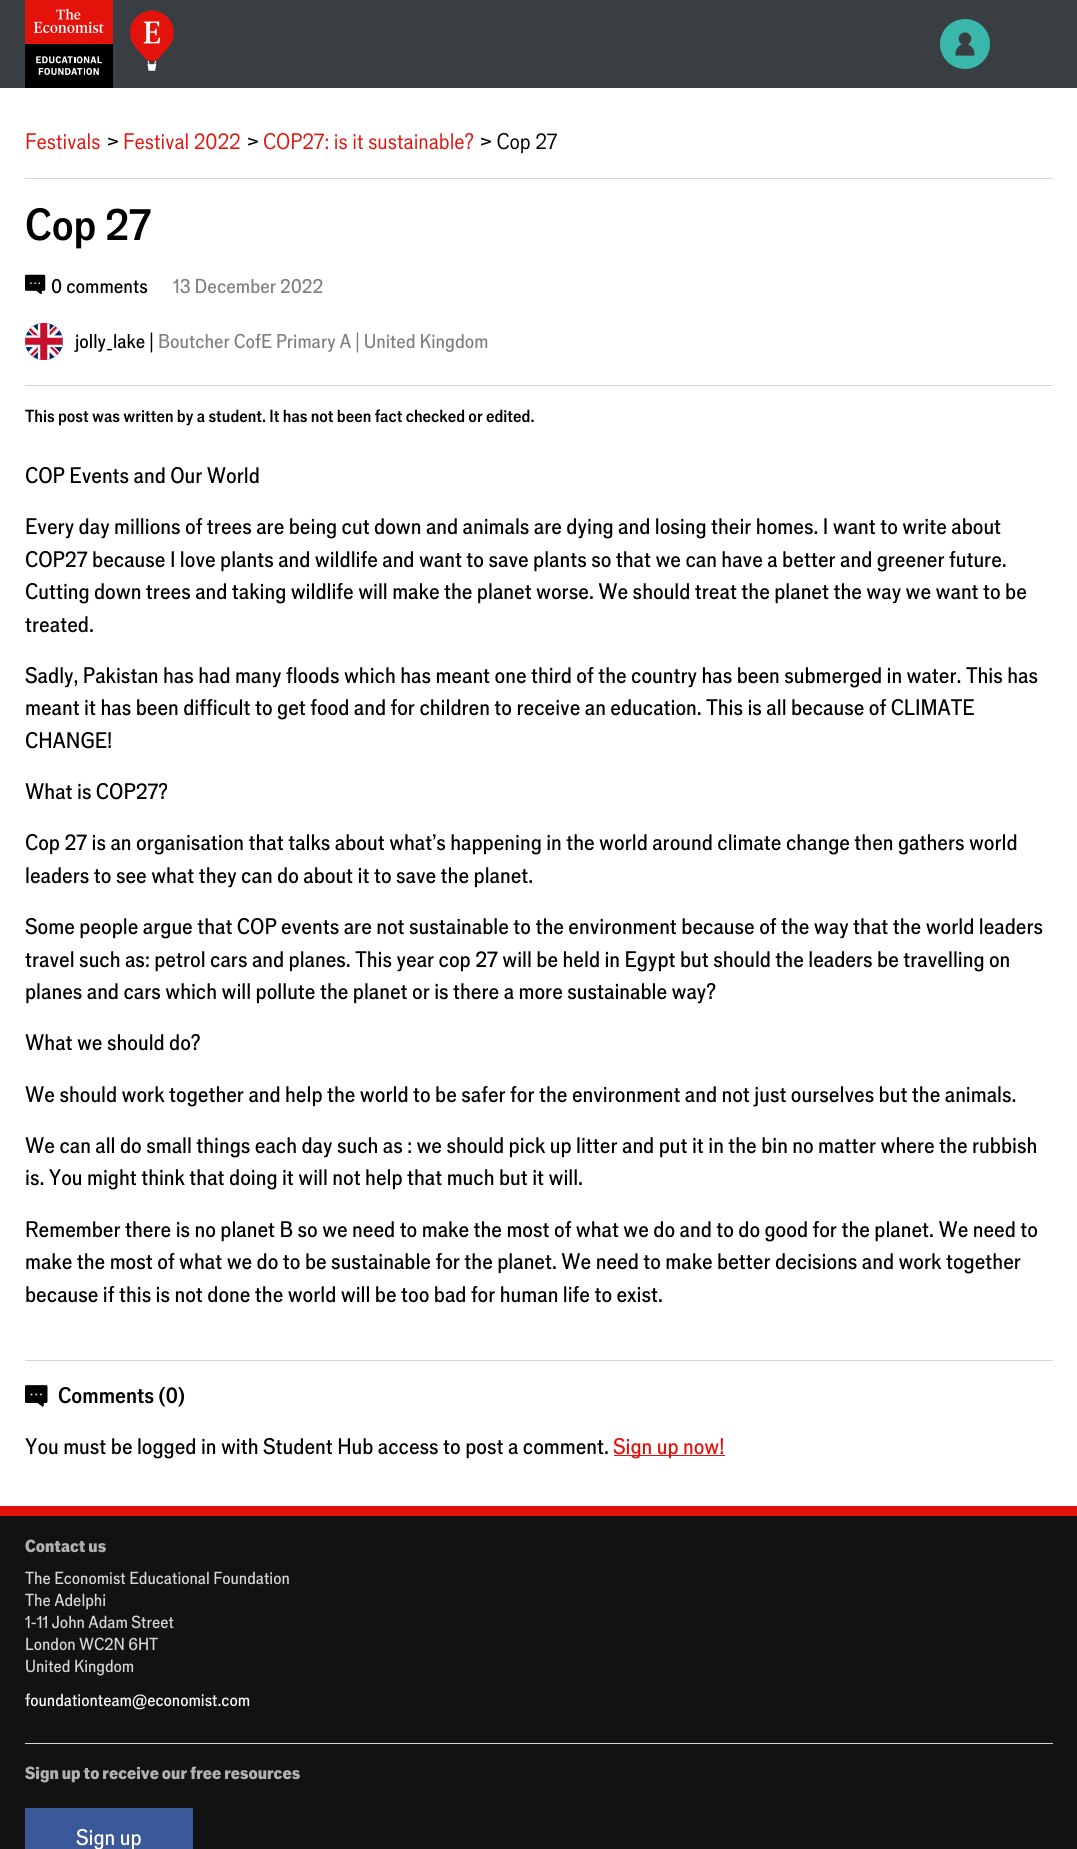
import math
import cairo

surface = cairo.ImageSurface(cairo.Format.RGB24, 1077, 1849)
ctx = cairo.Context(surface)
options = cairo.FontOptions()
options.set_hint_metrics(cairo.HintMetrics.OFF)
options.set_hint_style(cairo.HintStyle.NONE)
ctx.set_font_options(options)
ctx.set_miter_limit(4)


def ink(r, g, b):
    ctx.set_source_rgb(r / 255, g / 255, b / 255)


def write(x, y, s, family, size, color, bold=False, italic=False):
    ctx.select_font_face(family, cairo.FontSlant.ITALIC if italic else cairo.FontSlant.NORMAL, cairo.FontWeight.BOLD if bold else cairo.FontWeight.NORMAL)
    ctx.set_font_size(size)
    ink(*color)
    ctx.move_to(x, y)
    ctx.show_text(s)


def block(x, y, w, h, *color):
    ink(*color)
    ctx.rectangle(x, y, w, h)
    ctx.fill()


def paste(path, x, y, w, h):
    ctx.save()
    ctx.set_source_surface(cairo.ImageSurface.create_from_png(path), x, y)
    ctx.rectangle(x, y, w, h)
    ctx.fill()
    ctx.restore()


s1 = dict(family="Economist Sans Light", size=22.5, color=(227, 18, 11))
s2 = dict(family="Economist Sans Light", size=22.5, color=(0, 0, 0))
s3 = dict(family="Economist Sans Medium", size=45, color=(0, 0, 0))
s4 = dict(family="Economist Sans", size=20.25, color=(0, 0, 0))
s5 = dict(family="Economist Sans", size=20.25, color=(128, 128, 128))
s6 = dict(family="Economist Sans", size=20, color=(0, 0, 0))
s7 = dict(family="Economist Sans", size=20, color=(128, 128, 128))
s8 = dict(family="Economist Sans Medium", size=17.5, color=(0, 0, 0))
s9 = dict(family="Economist Sans", size=22.5, color=(0, 0, 0))
s10 = dict(family="Economist Sans Medium", size=22.5, color=(0, 0, 0))
s11 = dict(family="Economist Sans", size=22.5, color=(227, 18, 11))
s12 = dict(family="Economist Sans ExtraBold", size=17.5, color=(176, 176, 176))
s13 = dict(family="Economist Sans", size=17.5, color=(215, 215, 215))
s14 = dict(family="Economist Sans", size=17.5, color=(255, 255, 255))
s15 = dict(family="Economist Sans", size=22.5, color=(255, 255, 255))

ink(255, 255, 255)
ctx.paint()
block(0, 0, 1077, 88, 56, 62, 66)
paste("pic1.png", 25, 0, 88, 88)
paste("pic2.png", 130, 10, 44, 61)
ink(58, 183, 171)
ctx.arc(965, 44, 25, 0, 2 * math.pi)
ctx.fill()
paste("pic3.png", 955, 32, 20, 24)
block(25, 178, 1028, 1, 215, 215, 215)
write(25, 149, "Festivals", **s1)
write(107, 149, ">", **s2)
write(123, 149, "Festival 2022", **s1)
write(247, 149, ">", **s2)
write(263, 149, "COP27: is it sustainable?", **s1)
write(480, 149, "> Cop 27", **s2)
write(25, 240, "Cop 27", **s3)
paste("pic4.png", 25, 274, 21, 21)
write(51, 293, "0 comments", **s4)
write(173, 293, "13 December 2022", **s5)
block(25, 385, 1028, 1, 215, 215, 215)
paste("pic5.png", 25, 323, 38, 37)
write(75, 348, "jolly_lake |", **s6)
write(158, 348, "Boutcher CofE Primary A | United Kingdom", **s7)
write(25, 422, "This post was written by a student. It has not been fact checked or edited.", **s8)
write(25, 483, "COP Events and Our World", **s9)
write(25, 534, "Every day millions of trees are being cut down and animals are dying and losing their homes. I want to write about", **s9)
write(25, 567, "COP27 because I love plants and wildlife and want to save plants so that we can have a better and greener future.", **s9)
write(25, 599, "Cutting down trees and taking wildlife will make the planet worse. We should treat the planet the way we want to be", **s9)
write(25, 632, "treated.", **s9)
write(25, 683, "Sadly, Pakistan has had many floods which has meant one third of the country has been submerged in water. This has", **s9)
write(25, 715, "meant it has been difficult to get food and for children to receive an education. This is all because of CLIMATE", **s9)
write(25, 748, "CHANGE!", **s9)
write(25, 799, "What is COP27?", **s9)
write(25, 850, "Cop 27 is an organisation that talks about what's happening in the world around climate change then gathers world", **s9)
write(25, 883, "leaders to see what they can do about it to save the planet.", **s9)
write(25, 934, "Some people argue that COP events are not sustainable to the environment because of the way that the world leaders", **s9)
write(25, 967, "travel such as: petrol cars and planes. This year cop 27 will be held in Egypt but should the leaders be travelling on", **s9)
write(25, 999, "planes and cars which will pollute the planet or is there a more sustainable way?", **s9)
write(25, 1050, "What we should do?", **s9)
write(25, 1102, "We should work together and help the world to be safer for the environment and not just ourselves but the animals.", **s9)
write(25, 1153, "We can all do small things each day such as : we should pick up litter and put it in the bin no matter where the rubbish", **s9)
write(25, 1185, "is. You might think that doing it will not help that much but it will.", **s9)
write(25, 1237, "Remember there is no planet B so we need to make the most of what we do and to do good for the planet. We need to", **s9)
write(25, 1269, "make the most of what we do to be sustainable for the planet. We need to make better decisions and work together", **s9)
write(25, 1302, "because if this is not done the world will be too bad for human life to exist.", **s9)
block(25, 1360, 1028, 1, 215, 215, 215)
paste("pic6.png", 25, 1385, 23, 22)
write(58, 1403, "Comments (0)", **s10)
write(25, 1454, "You must be logged in with Student Hub access to post a comment.", **s9)
block(614, 1455, 111, 1, 227, 18, 11)
write(613, 1454, "Sign up now!", **s11)
block(0, 1516, 1077, 333, 18, 18, 18)
block(0, 1506, 1077, 10, 227, 18, 11)
block(25, 1743, 1028, 1, 215, 215, 215)
write(25, 1552, "Contact us", **s12)
write(25, 1584, "The Economist Educational Foundation", **s13)
write(25, 1606, "The Adelphi", **s13)
write(25, 1628, "1-11 John Adam Street", **s13)
write(25, 1650, "London WC2N 6HT", **s13)
write(25, 1672, "United Kingdom", **s13)
write(25, 1706, "foundationteam@economist.com", **s14)
write(25, 1779, "Sign up to receive our free resources", **s12)
block(25, 1808, 168, 41, 59, 89, 152)
write(76, 1845, "Sign up", **s15)
surface.write_to_png("screenshot.png")
